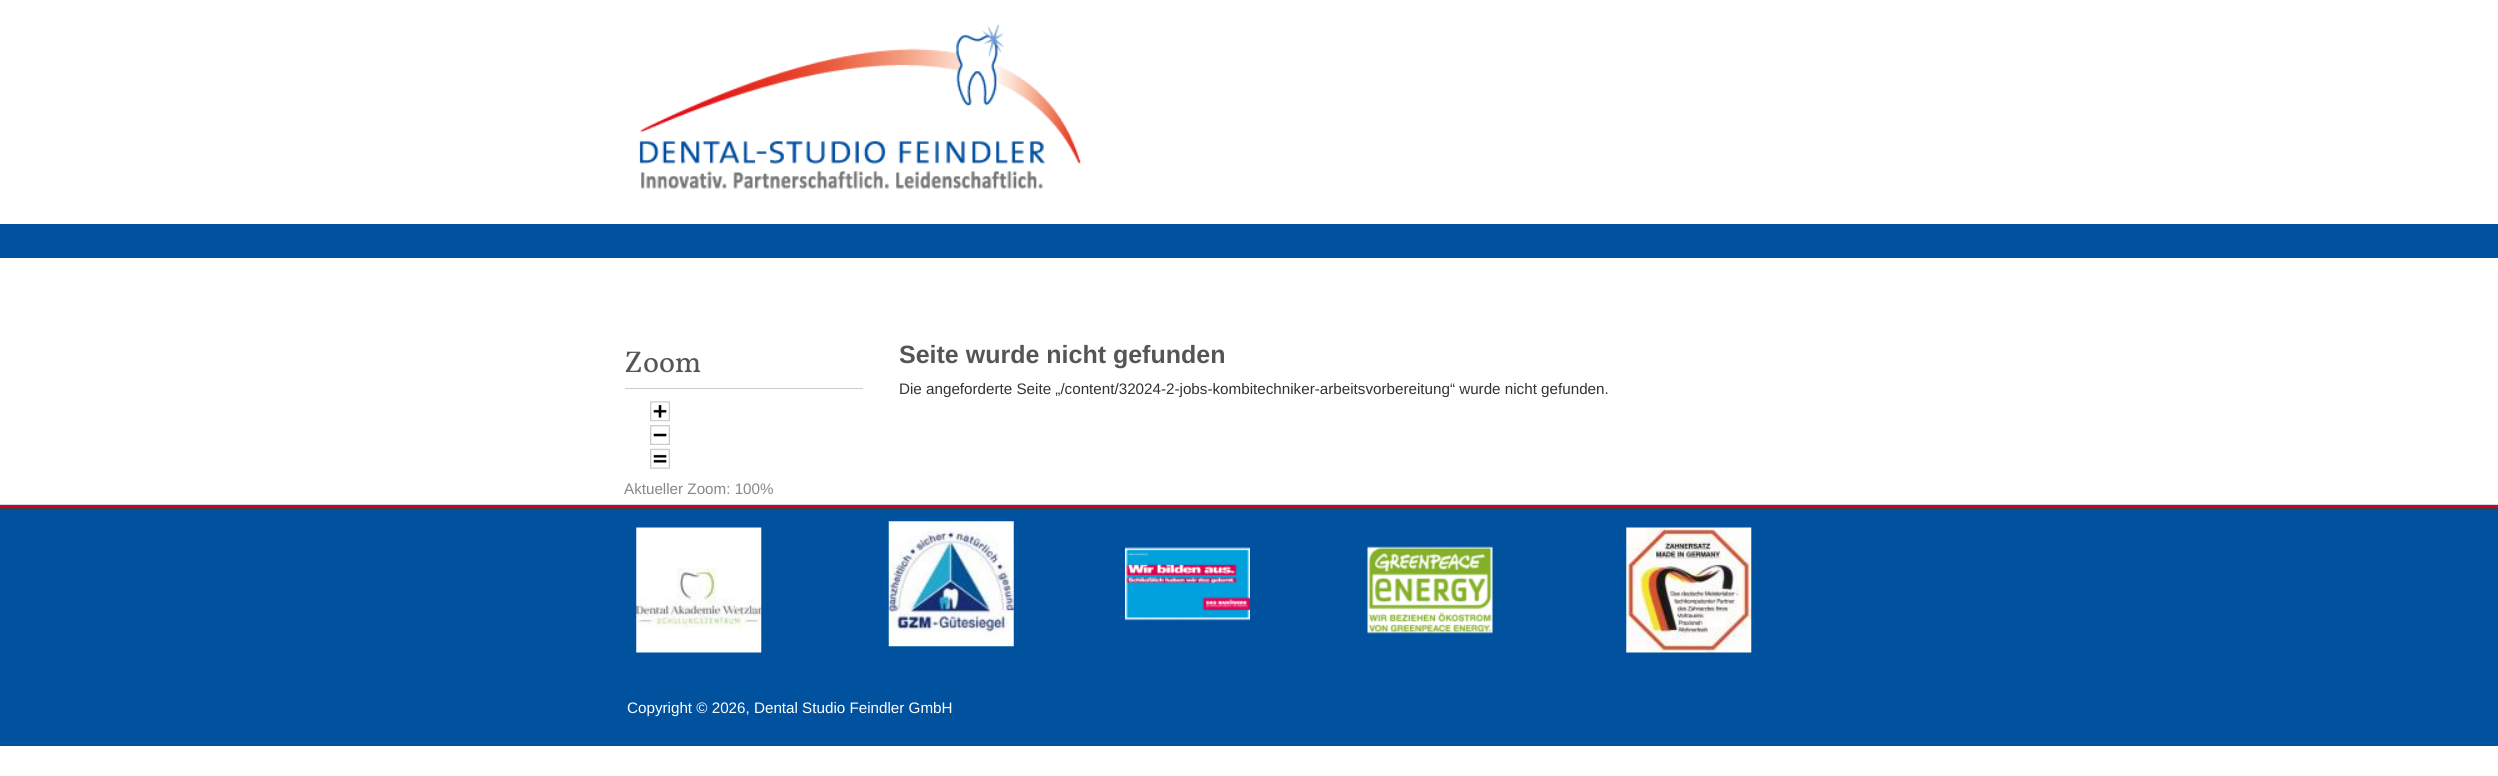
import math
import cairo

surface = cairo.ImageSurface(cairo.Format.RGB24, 2498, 776)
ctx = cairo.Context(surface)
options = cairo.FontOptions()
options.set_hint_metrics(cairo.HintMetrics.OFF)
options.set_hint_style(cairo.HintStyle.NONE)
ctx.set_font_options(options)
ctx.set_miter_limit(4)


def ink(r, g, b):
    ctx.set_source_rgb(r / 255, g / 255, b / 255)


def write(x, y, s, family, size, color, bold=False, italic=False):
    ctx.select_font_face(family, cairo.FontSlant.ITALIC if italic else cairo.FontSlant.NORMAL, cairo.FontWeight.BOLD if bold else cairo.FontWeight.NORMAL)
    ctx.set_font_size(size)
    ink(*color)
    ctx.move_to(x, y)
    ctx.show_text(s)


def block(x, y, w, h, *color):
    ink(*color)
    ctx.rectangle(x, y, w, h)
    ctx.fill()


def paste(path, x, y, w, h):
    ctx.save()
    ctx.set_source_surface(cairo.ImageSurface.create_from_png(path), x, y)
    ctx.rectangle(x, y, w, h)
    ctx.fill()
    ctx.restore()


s1 = dict(family="Vollkorn", size=30, color=(85, 85, 85))
s2 = dict(family="Liberation Sans", size=15.2, color=(136, 136, 136))
s3 = dict(family="Liberation Sans", size=25, color=(85, 85, 85), bold=True)
s4 = dict(family="Liberation Sans", size=15.2, color=(51, 51, 51))
s5 = dict(family="Liberation Sans", size=15.2, color=(255, 255, 255))

ink(255, 255, 255)
ctx.paint()
paste("pic1.png", 639, 24, 442, 165)
block(0, 224, 2498, 34, 0, 81, 158)
block(625, 388, 238, 1, 204, 204, 204)
write(624, 372, "Zoom", **s1)
paste("pic2.png", 650, 401, 20, 21)
paste("pic3.png", 650, 425, 20, 20)
paste("pic4.png", 650, 448, 20, 21)
write(624, 494, "Aktueller Zoom: 100%", **s2)
write(899, 363, "Seite wurde nicht gefunden", **s3)
write(899, 394, "Die angeforderte Seite „/content/32024-2-jobs-kombitechniker-arbeitsvorbereitung“ wurde nicht gefunden.", **s4)
block(0, 505, 2498, 3, 206, 2, 40)
block(0, 504, 2498, 1, 207, 215, 219)
block(0, 509, 2498, 237, 0, 81, 158)
block(0, 508, 2498, 1, 59, 60, 61)
paste("pic5.png", 636, 527, 126, 126)
paste("pic6.png", 888, 521, 126, 126)
paste("pic7.png", 1125, 547, 125, 74)
paste("pic8.png", 1367, 546, 126, 88)
paste("pic9.png", 1626, 527, 126, 126)
write(627, 713, "Copyright © 2026, Dental Studio Feindler GmbH", **s5)
surface.write_to_png("screenshot.png")
